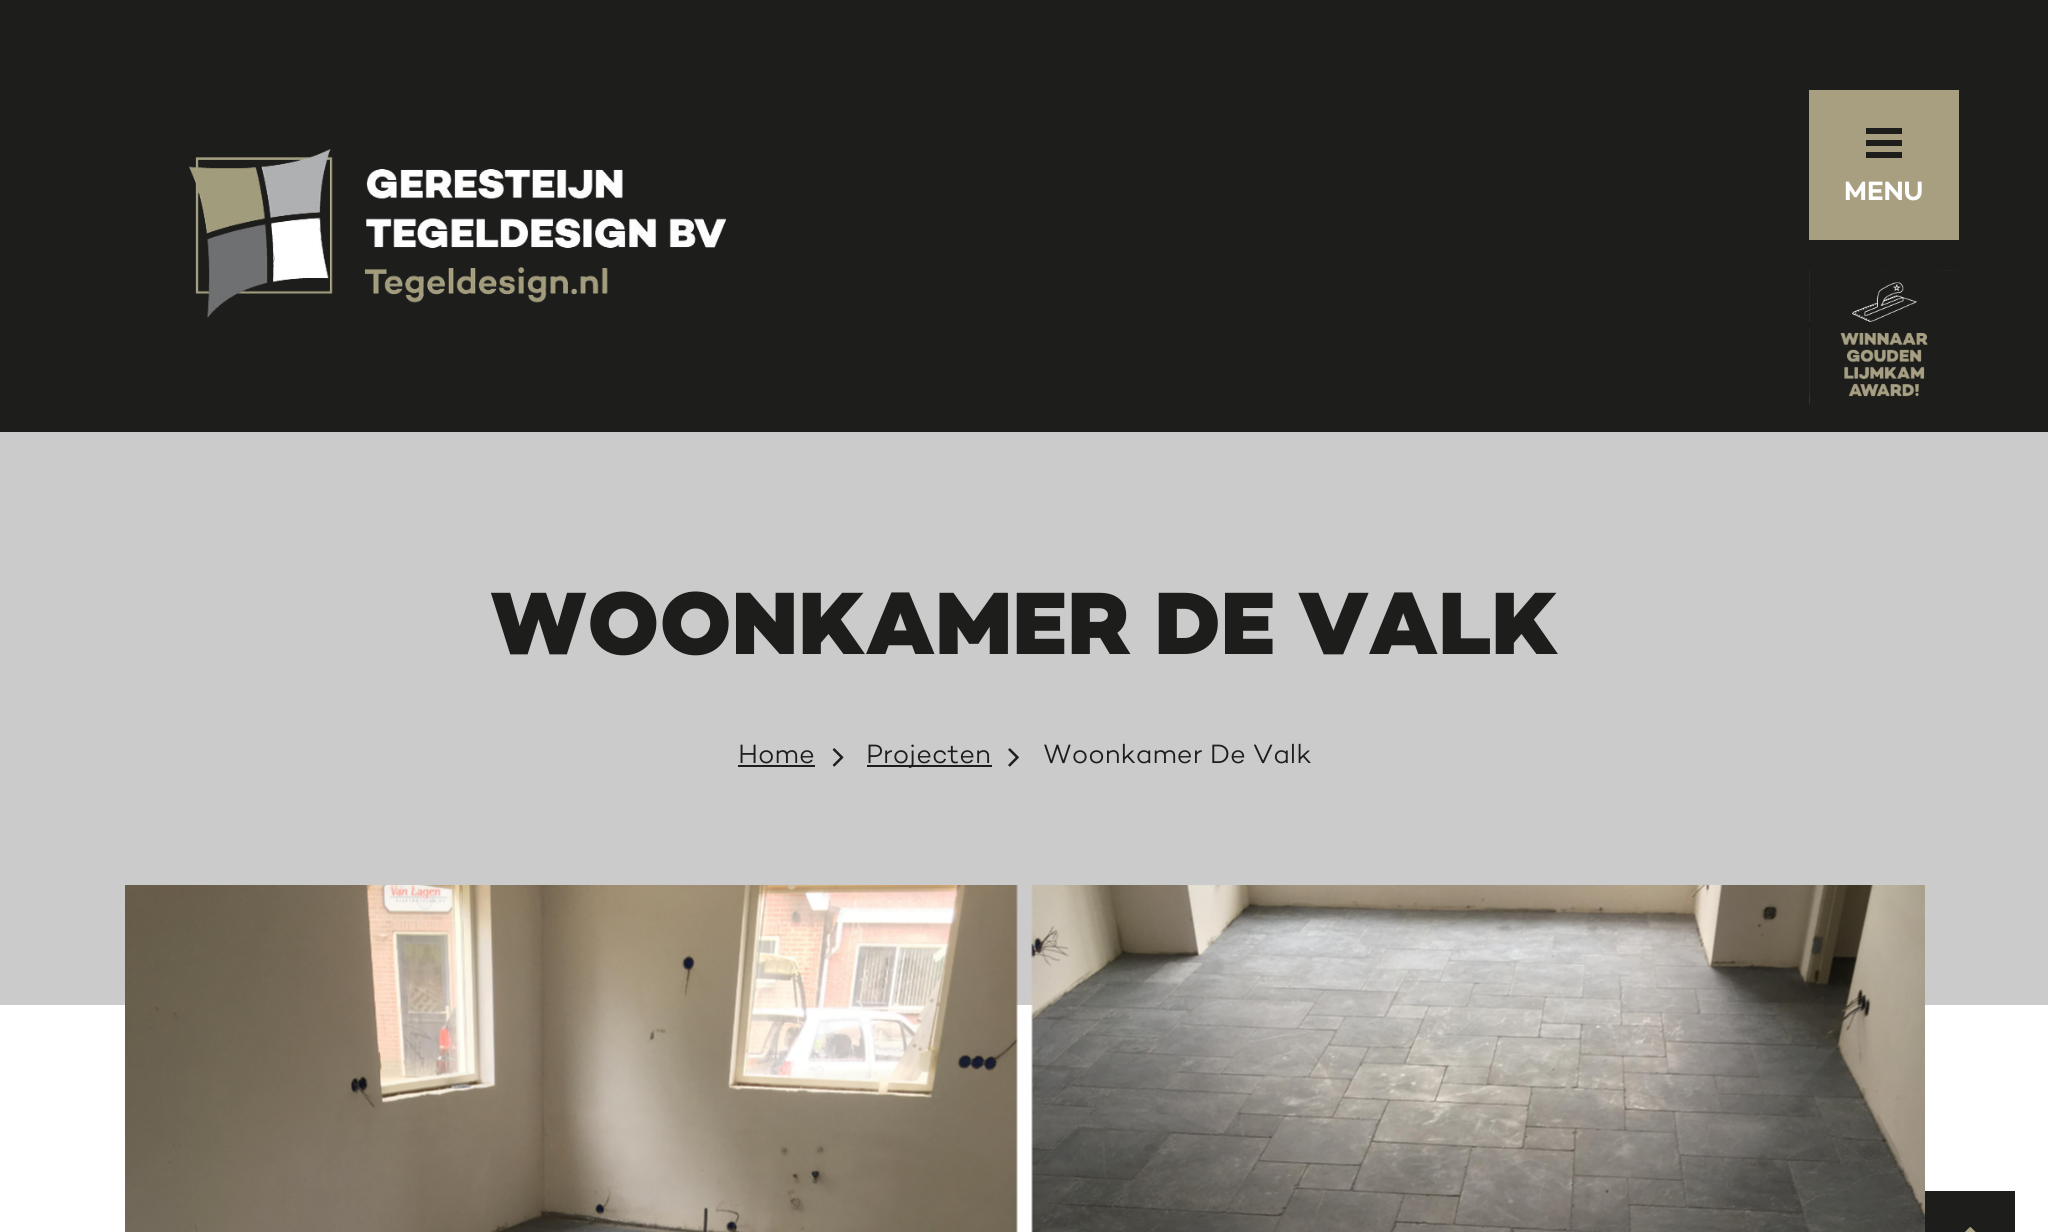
import math
import cairo

surface = cairo.ImageSurface(cairo.Format.RGB24, 2048, 1232)
ctx = cairo.Context(surface)
options = cairo.FontOptions()
options.set_hint_metrics(cairo.HintMetrics.OFF)
options.set_hint_style(cairo.HintStyle.NONE)
ctx.set_font_options(options)
ctx.set_miter_limit(4)


def ink(r, g, b):
    ctx.set_source_rgb(r / 255, g / 255, b / 255)


def write(x, y, s, family, size, color, bold=False, italic=False):
    ctx.select_font_face(family, cairo.FontSlant.ITALIC if italic else cairo.FontSlant.NORMAL, cairo.FontWeight.BOLD if bold else cairo.FontWeight.NORMAL)
    ctx.set_font_size(size)
    ink(*color)
    ctx.move_to(x, y)
    ctx.show_text(s)


def block(x, y, w, h, *color):
    ink(*color)
    ctx.rectangle(x, y, w, h)
    ctx.fill()


def paste(path, x, y, w, h):
    ctx.save()
    ctx.set_source_surface(cairo.ImageSurface.create_from_png(path), x, y)
    ctx.rectangle(x, y, w, h)
    ctx.fill()
    ctx.restore()


s1 = dict(family="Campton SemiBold", size=27, color=(255, 255, 255))
s2 = dict(family="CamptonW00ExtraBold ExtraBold", size=90, color=(29, 29, 27))
s3 = dict(family="Campton Light", size=27, color=(29, 29, 27))

ink(255, 255, 255)
ctx.paint()
block(0, 0, 2048, 432, 29, 29, 27)
paste("pic1.png", 189, 149, 538, 169)
block(1809, 90, 150, 150, 168, 159, 128)
block(1866, 128, 36, 6, 29, 29, 27)
block(1866, 140, 36, 6, 29, 29, 27)
block(1866, 152, 36, 6, 29, 29, 27)
write(1844, 200, "MENU", **s1)
paste("pic2.png", 1809, 270, 148, 136)
block(0, 432, 2048, 573, 203, 203, 203)
write(490, 654, "WOONKAMER DE VALK", **s2)
write(738, 763, "Home", **s3)
block(738, 765, 77, 2, 29, 29, 27)
paste("pic3.png", 832, 748, 12, 19)
block(867, 765, 125, 2, 29, 29, 27)
write(866, 763, "Projecten", **s3)
paste("pic4.png", 1008, 748, 11, 19)
write(1043, 763, "Woonkamer De Valk", **s3)
paste("pic5.png", 125, 885, 893, 347)
paste("pic6.png", 1031, 885, 894, 347)
block(1925, 1191, 90, 41, 29, 29, 27)
paste("pic7.png", 1965, 1227, 11, 5)
surface.write_to_png("screenshot.png")
